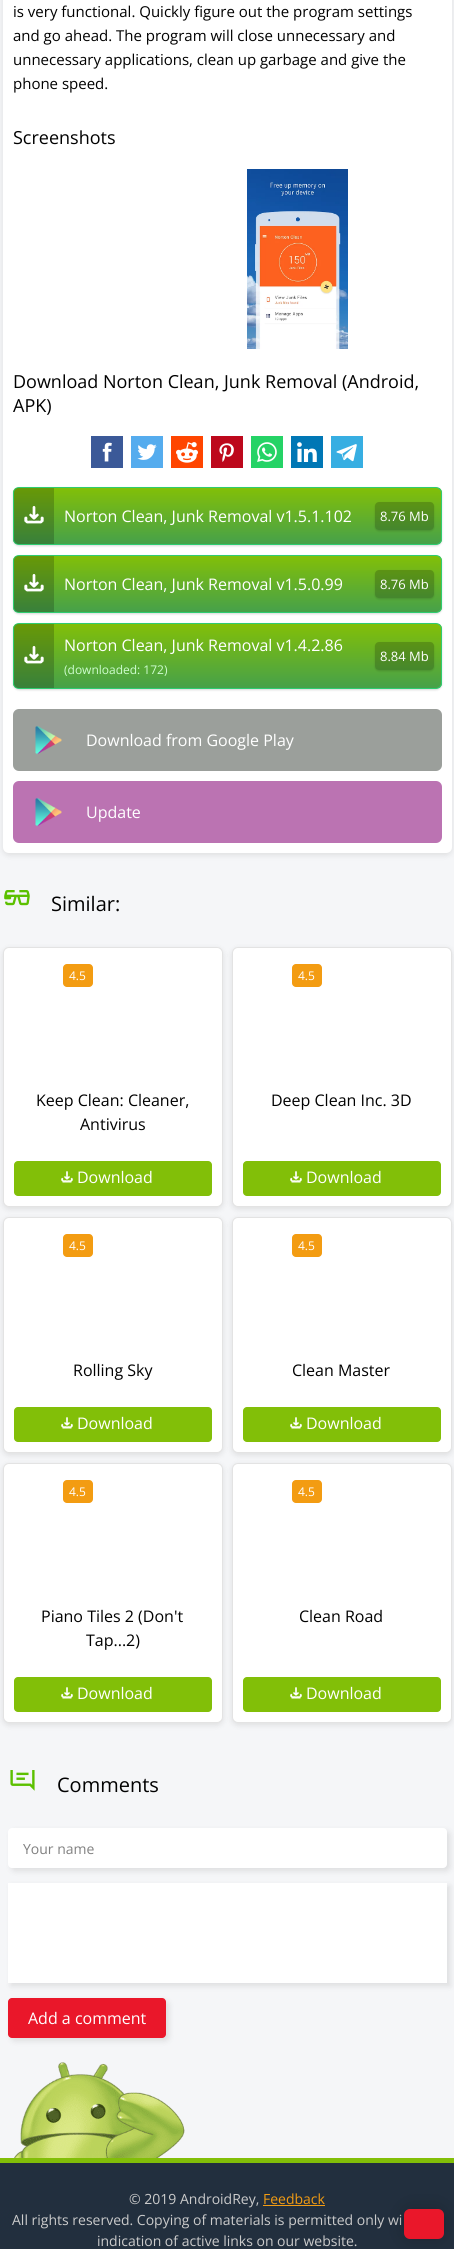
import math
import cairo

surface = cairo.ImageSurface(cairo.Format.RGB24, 454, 2249)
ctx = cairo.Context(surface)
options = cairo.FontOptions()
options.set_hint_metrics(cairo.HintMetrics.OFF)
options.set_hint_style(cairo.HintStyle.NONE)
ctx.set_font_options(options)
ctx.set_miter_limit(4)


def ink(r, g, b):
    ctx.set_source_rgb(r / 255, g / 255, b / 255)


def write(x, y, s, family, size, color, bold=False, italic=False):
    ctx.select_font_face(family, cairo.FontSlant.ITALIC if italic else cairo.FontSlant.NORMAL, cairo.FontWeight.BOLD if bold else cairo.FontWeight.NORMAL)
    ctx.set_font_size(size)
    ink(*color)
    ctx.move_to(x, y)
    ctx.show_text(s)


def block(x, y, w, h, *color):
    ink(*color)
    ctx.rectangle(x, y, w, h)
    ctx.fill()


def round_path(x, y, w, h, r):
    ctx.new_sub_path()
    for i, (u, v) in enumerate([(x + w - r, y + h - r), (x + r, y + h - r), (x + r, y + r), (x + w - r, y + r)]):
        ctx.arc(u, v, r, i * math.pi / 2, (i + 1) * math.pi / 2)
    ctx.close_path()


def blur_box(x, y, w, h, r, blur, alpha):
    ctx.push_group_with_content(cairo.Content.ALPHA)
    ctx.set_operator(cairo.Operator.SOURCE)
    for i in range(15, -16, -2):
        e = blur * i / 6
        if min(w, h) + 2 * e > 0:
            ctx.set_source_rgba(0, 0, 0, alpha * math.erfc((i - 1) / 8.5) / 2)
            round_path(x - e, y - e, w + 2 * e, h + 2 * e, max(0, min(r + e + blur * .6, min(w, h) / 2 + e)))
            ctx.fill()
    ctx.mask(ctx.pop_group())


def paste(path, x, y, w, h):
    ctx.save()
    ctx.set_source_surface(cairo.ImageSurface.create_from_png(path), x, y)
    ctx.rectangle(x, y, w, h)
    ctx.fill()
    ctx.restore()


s1 = dict(family="Open Sans", size=15, color=(1, 1, 1))
s2 = dict(family="Open Sans", size=18, color=(1, 1, 1))
s3 = dict(family="Open Sans", size=16, color=(255, 255, 255))
s4 = dict(family="Open Sans", size=13, color=(255, 255, 255))
s5 = dict(family="Open Sans", size=12, color=(206, 253, 208))
s6 = dict(family="Open Sans", size=20, color=(1, 1, 1))
s7 = dict(family="Open Sans", size=12, color=(255, 255, 255))
s8 = dict(family="Open Sans", size=16, color=(1, 1, 1))
s9 = dict(family="Open Sans", size=14, color=(128, 128, 128))
s10 = dict(family="Open Sans", size=14, color=(203, 203, 203))
s11 = dict(family="Open Sans", size=14, color=(243, 156, 18))

ink(245, 246, 248)
ctx.paint()
ink(0, 0, 0)
blur_box(3, -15, 449, 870, 6, 3, 0.1)
ink(255, 255, 255)
ctx.new_path()
ctx.move_to(3, -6)
ctx.line_to(452, -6)
ctx.line_to(452, 847)
ctx.curve_to(452, 850.5, 449.5, 853, 446, 853)
ctx.line_to(9, 853)
ctx.curve_to(5.5, 853, 3, 850.5, 3, 847)
ctx.close_path()
ctx.fill()
write(13, 17, "is very functional. Quickly figure out the program settings", **s1)
write(13, 41, "and go ahead. The program will close unnecessary and", **s1)
write(13, 65, "unnecessary applications, clean up garbage and give the", **s1)
write(13, 89, "phone speed.", **s1)
write(13, 144, "Screenshots", **s2)
paste("pic1.png", 247, 169, 101, 180)
write(13, 388, "Download Norton Clean, Junk Removal (Android,", **s2)
write(13, 412, "APK)", **s2)
block(91, 436, 32, 32, 59, 89, 152)
paste("pic2.png", 102, 442, 10, 20)
block(131, 436, 32, 32, 85, 172, 238)
paste("pic3.png", 137, 444, 20, 16)
block(171, 436, 32, 32, 255, 69, 0)
paste("pic4.png", 176, 442, 22, 21)
block(211, 436, 32, 32, 189, 8, 28)
paste("pic5.png", 219, 443, 15, 19)
block(251, 436, 32, 32, 37, 211, 102)
paste("pic6.png", 257, 442, 20, 20)
block(291, 436, 32, 32, 0, 119, 181)
paste("pic7.png", 297, 442, 20, 20)
block(331, 436, 32, 32, 55, 174, 226)
paste("pic8.png", 336, 444, 21, 18)
ink(0, 0, 0)
blur_box(13, 488, 429, 58, 6, 1, 0.15)
ctx.save()
round_path(13, 487, 429, 58, 6)
ctx.clip()
gradient = cairo.LinearGradient(228, 488, 228, 544)
gradient.add_color_stop_rgba(0, 0.51, 0.749, 0.031, 1)
gradient.add_color_stop_rgba(1, 0.275, 0.631, 0.29, 1)
ctx.set_source(gradient)
ctx.rectangle(13, 488, 429, 56)
ctx.fill()
ctx.restore()
round_path(13.5, 487.5, 428, 57, 5.5)
ink(46, 204, 113)
ctx.set_line_width(1)
ctx.stroke()
ctx.set_source_rgba(0, 0, 0, 0.2)
ctx.new_path()
ctx.move_to(18, 488)
ctx.line_to(54, 488)
ctx.line_to(54, 544)
ctx.line_to(18, 544)
ctx.curve_to(16, 544, 14, 542, 14, 540)
ctx.line_to(14, 492)
ctx.curve_to(14, 490, 16, 488, 18, 488)
ctx.close_path()
ctx.fill()
paste("pic9.png", 24, 506, 20, 18)
write(64, 522, "Norton Clean, Junk Removal v1.5.1.102", **s3)
ctx.save()
ctx.set_fill_rule(cairo.FillRule.EVEN_ODD)
ctx.new_path()
ctx.move_to(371, 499)
ctx.line_to(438, 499)
ctx.line_to(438, 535)
ctx.line_to(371, 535)
ctx.close_path()
ctx.move_to(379, 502)
ctx.line_to(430, 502)
ctx.curve_to(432, 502, 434, 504, 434, 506)
ctx.line_to(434, 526)
ctx.curve_to(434, 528, 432, 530, 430, 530)
ctx.line_to(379, 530)
ctx.curve_to(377, 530, 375, 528, 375, 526)
ctx.line_to(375, 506)
ctx.curve_to(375, 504, 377, 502, 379, 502)
ctx.close_path()
ctx.clip()
ink(0, 0, 0)
blur_box(375, 503, 59, 28, 4, 1, 0.15)
ctx.restore()
ctx.set_source_rgba(0, 0, 0, 0.2)
round_path(375, 502, 59, 28, 4)
ctx.fill()
write(380, 521, "8.76 Mb", **s4)
ink(0, 0, 0)
blur_box(13, 556, 429, 58, 6, 1, 0.15)
ctx.save()
round_path(13, 555, 429, 58, 6)
ctx.clip()
gradient = cairo.LinearGradient(228, 556, 228, 612)
gradient.add_color_stop_rgba(0, 0.51, 0.749, 0.031, 1)
gradient.add_color_stop_rgba(1, 0.275, 0.631, 0.29, 1)
ctx.set_source(gradient)
ctx.rectangle(13, 556, 429, 56)
ctx.fill()
ctx.restore()
round_path(13.5, 555.5, 428, 57, 5.5)
ink(46, 204, 113)
ctx.stroke()
ctx.set_source_rgba(0, 0, 0, 0.2)
ctx.new_path()
ctx.move_to(18, 556)
ctx.line_to(54, 556)
ctx.line_to(54, 612)
ctx.line_to(18, 612)
ctx.curve_to(16, 612, 14, 610, 14, 608)
ctx.line_to(14, 560)
ctx.curve_to(14, 558, 16, 556, 18, 556)
ctx.close_path()
ctx.fill()
paste("pic9.png", 24, 574, 20, 18)
write(64, 590, "Norton Clean, Junk Removal v1.5.0.99", **s3)
ctx.save()
ctx.set_fill_rule(cairo.FillRule.EVEN_ODD)
ctx.new_path()
ctx.move_to(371, 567)
ctx.line_to(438, 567)
ctx.line_to(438, 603)
ctx.line_to(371, 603)
ctx.close_path()
ctx.move_to(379, 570)
ctx.line_to(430, 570)
ctx.curve_to(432, 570, 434, 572, 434, 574)
ctx.line_to(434, 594)
ctx.curve_to(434, 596, 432, 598, 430, 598)
ctx.line_to(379, 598)
ctx.curve_to(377, 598, 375, 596, 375, 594)
ctx.line_to(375, 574)
ctx.curve_to(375, 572, 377, 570, 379, 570)
ctx.close_path()
ctx.clip()
ink(0, 0, 0)
blur_box(375, 571, 59, 28, 4, 1, 0.15)
ctx.restore()
ctx.set_source_rgba(0, 0, 0, 0.2)
round_path(375, 570, 59, 28, 4)
ctx.fill()
write(380, 589, "8.76 Mb", **s4)
ink(0, 0, 0)
blur_box(13, 624, 429, 66, 6, 1, 0.15)
ctx.save()
round_path(13, 623, 429, 66, 6)
ctx.clip()
gradient = cairo.LinearGradient(228, 624, 228, 688)
gradient.add_color_stop_rgba(0, 0.51, 0.749, 0.031, 1)
gradient.add_color_stop_rgba(1, 0.275, 0.631, 0.29, 1)
ctx.set_source(gradient)
ctx.rectangle(13, 624, 429, 64)
ctx.fill()
ctx.restore()
round_path(13.5, 623.5, 428, 65, 5.5)
ink(46, 204, 113)
ctx.stroke()
ctx.set_source_rgba(0, 0, 0, 0.2)
ctx.new_path()
ctx.move_to(18, 624)
ctx.line_to(54, 624)
ctx.line_to(54, 688)
ctx.line_to(18, 688)
ctx.curve_to(16, 688, 14, 686, 14, 684)
ctx.line_to(14, 628)
ctx.curve_to(14, 626, 16, 624, 18, 624)
ctx.close_path()
ctx.fill()
paste("pic10.png", 24, 646, 20, 18)
write(64, 651, "Norton Clean, Junk Removal v1.4.2.86", **s3)
write(64, 674, "(downloaded: 172)", **s5)
ctx.save()
ctx.set_fill_rule(cairo.FillRule.EVEN_ODD)
ctx.new_path()
ctx.move_to(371, 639)
ctx.line_to(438, 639)
ctx.line_to(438, 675)
ctx.line_to(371, 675)
ctx.close_path()
ctx.move_to(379, 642)
ctx.line_to(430, 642)
ctx.curve_to(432, 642, 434, 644, 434, 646)
ctx.line_to(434, 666)
ctx.curve_to(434, 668, 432, 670, 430, 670)
ctx.line_to(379, 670)
ctx.curve_to(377, 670, 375, 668, 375, 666)
ctx.line_to(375, 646)
ctx.curve_to(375, 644, 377, 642, 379, 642)
ctx.close_path()
ctx.clip()
ink(0, 0, 0)
blur_box(375, 643, 59, 28, 4, 1, 0.15)
ctx.restore()
ctx.set_source_rgba(0, 0, 0, 0.2)
round_path(375, 642, 59, 28, 4)
ctx.fill()
write(380, 661, "8.84 Mb", **s4)
ink(155, 159, 155)
round_path(13, 709, 429, 62, 6)
ctx.fill()
paste("pic11.png", 35, 725, 27, 30)
write(86, 746, "Download from Google Play", **s3)
ink(187, 115, 178)
round_path(13, 781, 429, 62, 6)
ctx.fill()
paste("pic12.png", 35, 797, 27, 30)
write(86, 818, "Update", **s3)
paste("pic13.png", 4, 890, 26, 16)
write(51, 911, "Similar:", **s6)
ink(0, 0, 0)
blur_box(3, 949, 220, 260, 6, 3, 0.1)
ink(255, 255, 255)
round_path(3.5, 947.5, 219, 259, 5.5)
ctx.fill_preserve()
ink(227, 227, 227)
ctx.stroke()
ink(243, 156, 18)
round_path(63, 964, 30, 23, 4)
ctx.fill()
write(69, 980, "4.5", **s7)
write(36, 1106, "Keep Clean: Cleaner,", **s8)
write(80, 1130, "Antivirus", **s8)
ink(130, 191, 8)
round_path(14, 1161, 198, 35, 4)
ctx.fill()
paste("pic14.png", 61, 1171, 12, 12)
write(77, 1183, "Download", **s3)
ink(0, 0, 0)
blur_box(232, 949, 220, 260, 6, 3, 0.1)
ink(255, 255, 255)
round_path(232.5, 947.5, 219, 259, 5.5)
ctx.fill_preserve()
ink(227, 227, 227)
ctx.stroke()
ink(243, 156, 18)
round_path(292, 964, 30, 23, 4)
ctx.fill()
write(298, 980, "4.5", **s7)
write(271, 1106, "Deep Clean Inc. 3D", **s8)
ink(130, 191, 8)
round_path(243, 1161, 198, 35, 4)
ctx.fill()
paste("pic14.png", 290, 1171, 12, 12)
write(306, 1183, "Download", **s3)
ink(0, 0, 0)
blur_box(3, 1219, 220, 236, 6, 3, 0.1)
ink(255, 255, 255)
round_path(3.5, 1217.5, 219, 235, 5.5)
ctx.fill_preserve()
ink(227, 227, 227)
ctx.stroke()
ink(243, 156, 18)
round_path(63, 1234, 30, 23, 4)
ctx.fill()
write(69, 1250, "4.5", **s7)
write(73, 1376, "Rolling Sky", **s8)
ink(130, 191, 8)
round_path(14, 1407, 198, 35, 4)
ctx.fill()
paste("pic14.png", 61, 1417, 12, 12)
write(77, 1429, "Download", **s3)
ink(0, 0, 0)
blur_box(232, 1219, 220, 236, 6, 3, 0.1)
ink(255, 255, 255)
round_path(232.5, 1217.5, 219, 235, 5.5)
ctx.fill_preserve()
ink(227, 227, 227)
ctx.stroke()
ink(243, 156, 18)
round_path(292, 1234, 30, 23, 4)
ctx.fill()
write(298, 1250, "4.5", **s7)
write(292, 1376, "Clean Master", **s8)
ink(130, 191, 8)
round_path(243, 1407, 198, 35, 4)
ctx.fill()
paste("pic14.png", 290, 1417, 12, 12)
write(306, 1429, "Download", **s3)
ink(0, 0, 0)
blur_box(3, 1465, 220, 260, 6, 3, 0.1)
ink(255, 255, 255)
round_path(3.5, 1463.5, 219, 259, 5.5)
ctx.fill_preserve()
ink(227, 227, 227)
ctx.stroke()
ink(243, 156, 18)
round_path(63, 1480, 30, 23, 4)
ctx.fill()
write(69, 1496, "4.5", **s7)
write(41, 1622, "Piano Tiles 2 (Don't", **s8)
write(86, 1646, "Tap...2)", **s8)
ink(130, 191, 8)
round_path(14, 1677, 198, 35, 4)
ctx.fill()
paste("pic14.png", 61, 1687, 12, 12)
write(77, 1699, "Download", **s3)
ink(0, 0, 0)
blur_box(232, 1465, 220, 260, 6, 3, 0.1)
ink(255, 255, 255)
round_path(232.5, 1463.5, 219, 259, 5.5)
ctx.fill_preserve()
ink(227, 227, 227)
ctx.stroke()
ink(243, 156, 18)
round_path(292, 1480, 30, 23, 4)
ctx.fill()
write(298, 1496, "4.5", **s7)
write(299, 1622, "Clean Road", **s8)
ink(130, 191, 8)
round_path(243, 1677, 198, 35, 4)
ctx.fill()
paste("pic14.png", 290, 1687, 12, 12)
write(306, 1699, "Download", **s3)
paste("pic15.png", 10, 1770, 25, 21)
write(57, 1792, "Comments", **s6)
ink(0, 0, 0)
blur_box(11, 1831, 439, 40, 4, 3, 0.1)
ink(255, 255, 255)
round_path(8, 1828, 439, 40, 4)
ctx.fill()
write(23, 1854, "Your name", **s9)
ink(0, 0, 0)
blur_box(11, 1886, 439, 100, 0, 3, 0.1)
block(8, 1883, 439, 100, 255, 255, 255)
ink(0, 0, 0)
blur_box(11, 2001, 158, 40, 4, 3, 0.1)
ink(234, 23, 42)
round_path(8, 1998, 158, 40, 4)
ctx.fill()
write(28, 2024, "Add a comment", **s3)
block(0, 2163, 454, 86, 34, 47, 62)
block(0, 2158, 454, 5, 130, 191, 8)
paste("pic16.png", 14, 2062, 171, 96)
write(129, 2204, "© 2019 AndroidRey,", **s10)
write(263, 2204, "Feedback", **s11)
block(263, 2205, 62, 1, 243, 156, 18)
write(12, 2225, "All rights reserved. Copying of materials is permitted only wi", **s10)
write(97, 2246, "indication of active links on our website.", **s10)
ink(0, 0, 0)
blur_box(404, 2209, 40, 30, 6, 10, 0.2)
ink(234, 23, 42)
round_path(404, 2209, 40, 30, 6)
ctx.fill()
surface.write_to_png("screenshot.png")
